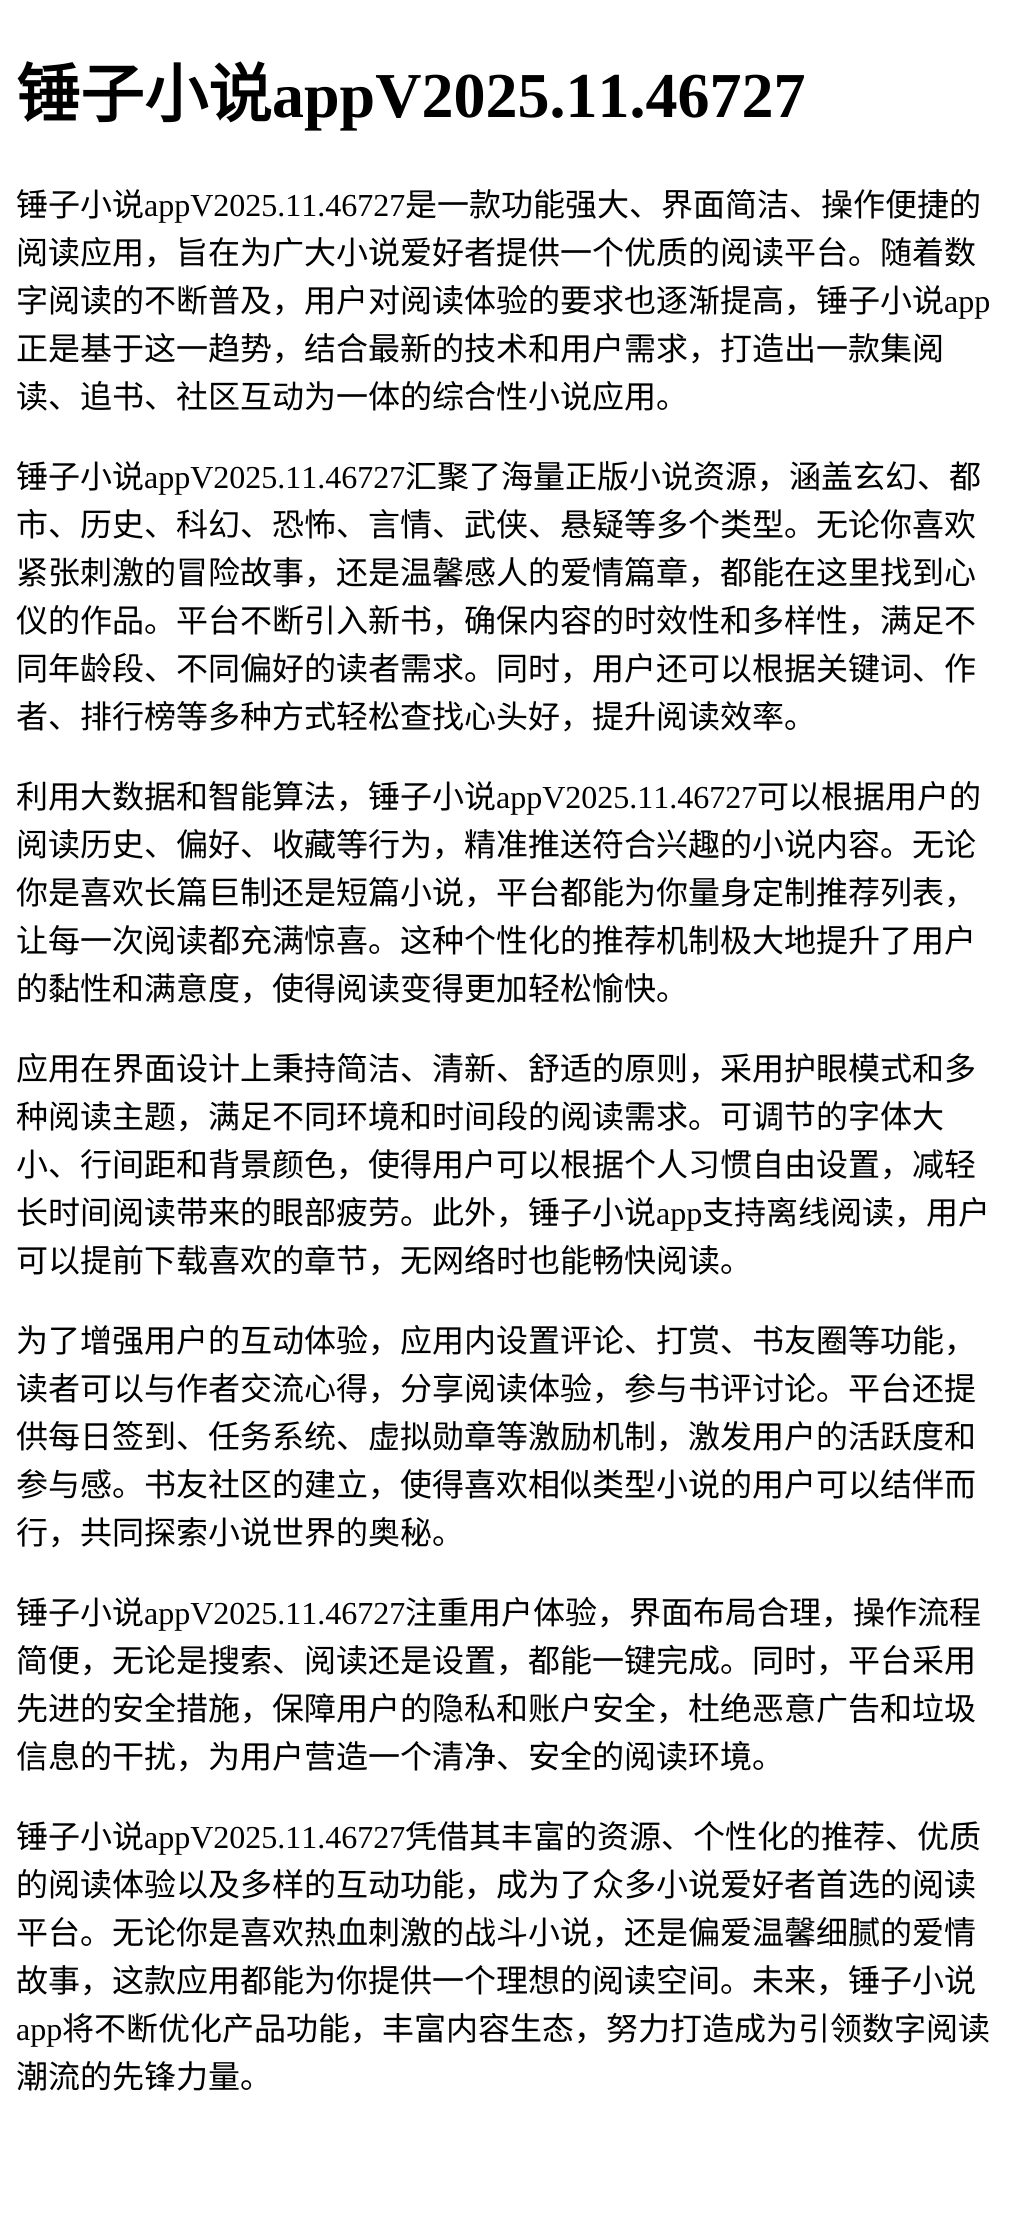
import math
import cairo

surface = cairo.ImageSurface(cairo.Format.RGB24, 1011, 2213)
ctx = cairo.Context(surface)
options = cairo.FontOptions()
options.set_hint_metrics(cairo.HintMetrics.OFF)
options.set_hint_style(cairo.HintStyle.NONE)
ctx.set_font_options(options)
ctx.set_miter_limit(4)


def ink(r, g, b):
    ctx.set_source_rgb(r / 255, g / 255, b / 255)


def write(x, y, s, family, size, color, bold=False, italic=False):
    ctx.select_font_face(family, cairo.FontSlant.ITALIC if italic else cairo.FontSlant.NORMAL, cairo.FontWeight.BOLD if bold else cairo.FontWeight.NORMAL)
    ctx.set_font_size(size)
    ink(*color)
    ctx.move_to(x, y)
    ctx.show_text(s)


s1 = dict(family="Noto Sans CJK SC", size=64, color=(0, 0, 0), bold=True)
s2 = dict(family="Liberation Serif", size=64, color=(0, 0, 0), bold=True)
s3 = dict(family="Noto Sans CJK SC", size=32, color=(0, 0, 0))
s4 = dict(family="Liberation Serif", size=32, color=(0, 0, 0))

ink(255, 255, 255)
ctx.paint()
write(16, 117, "锤子小说", **s1)
write(272, 117, "appV2025.11.46727", **s2)
write(16, 216, "锤子小说", **s3)
write(144, 216, "appV2025.11.46727", **s4)
write(405, 216, "是一款功能强大、界面简洁、操作便捷的", **s3)
write(16, 264, "阅读应用，旨在为广大小说爱好者提供一个优质的阅读平台。随着数", **s3)
write(16, 312, "字阅读的不断普及，用户对阅读体验的要求也逐渐提高，锤子小说", **s3)
write(944, 312, "app", **s4)
write(16, 360, "正是基于这一趋势，结合最新的技术和用户需求，打造出一款集阅", **s3)
write(16, 408, "读、追书、社区互动为一体的综合性小说应用。", **s3)
write(16, 488, "锤子小说", **s3)
write(144, 488, "appV2025.11.46727", **s4)
write(405, 488, "汇聚了海量正版小说资源，涵盖玄幻、都", **s3)
write(16, 536, "市、历史、科幻、恐怖、言情、武侠、悬疑等多个类型。无论你喜欢", **s3)
write(16, 584, "紧张刺激的冒险故事，还是温馨感人的爱情篇章，都能在这里找到心", **s3)
write(16, 632, "仪的作品。平台不断引入新书，确保内容的时效性和多样性，满足不", **s3)
write(16, 680, "同年龄段、不同偏好的读者需求。同时，用户还可以根据关键词、作", **s3)
write(16, 728, "者、排行榜等多种方式轻松查找心头好，提升阅读效率。", **s3)
write(16, 808, "利用大数据和智能算法，锤子小说", **s3)
write(496, 808, "appV2025.11.46727", **s4)
write(757, 808, "可以根据用户的", **s3)
write(16, 856, "阅读历史、偏好、收藏等行为，精准推送符合兴趣的小说内容。无论", **s3)
write(16, 904, "你是喜欢长篇巨制还是短篇小说，平台都能为你量身定制推荐列表，", **s3)
write(16, 952, "让每一次阅读都充满惊喜。这种个性化的推荐机制极大地提升了用户", **s3)
write(16, 1000, "的黏性和满意度，使得阅读变得更加轻松愉快。", **s3)
write(16, 1080, "应用在界面设计上秉持简洁、清新、舒适的原则，采用护眼模式和多", **s3)
write(16, 1128, "种阅读主题，满足不同环境和时间段的阅读需求。可调节的字体大", **s3)
write(16, 1176, "小、行间距和背景颜色，使得用户可以根据个人习惯自由设置，减轻", **s3)
write(16, 1224, "长时间阅读带来的眼部疲劳。此外，锤子小说", **s3)
write(656, 1224, "app", **s4)
write(702, 1224, "支持离线阅读，用户", **s3)
write(16, 1272, "可以提前下载喜欢的章节，无网络时也能畅快阅读。", **s3)
write(16, 1352, "为了增强用户的互动体验，应用内设置评论、打赏、书友圈等功能，", **s3)
write(16, 1400, "读者可以与作者交流心得，分享阅读体验，参与书评讨论。平台还提", **s3)
write(16, 1448, "供每日签到、任务系统、虚拟勋章等激励机制，激发用户的活跃度和", **s3)
write(16, 1496, "参与感。书友社区的建立，使得喜欢相似类型小说的用户可以结伴而", **s3)
write(16, 1544, "行，共同探索小说世界的奥秘。", **s3)
write(16, 1624, "锤子小说", **s3)
write(144, 1624, "appV2025.11.46727", **s4)
write(405, 1624, "注重用户体验，界面布局合理，操作流程", **s3)
write(16, 1672, "简便，无论是搜索、阅读还是设置，都能一键完成。同时，平台采用", **s3)
write(16, 1720, "先进的安全措施，保障用户的隐私和账户安全，杜绝恶意广告和垃圾", **s3)
write(16, 1768, "信息的干扰，为用户营造一个清净、安全的阅读环境。", **s3)
write(16, 1848, "锤子小说", **s3)
write(144, 1848, "appV2025.11.46727", **s4)
write(405, 1848, "凭借其丰富的资源、个性化的推荐、优质", **s3)
write(16, 1896, "的阅读体验以及多样的互动功能，成为了众多小说爱好者首选的阅读", **s3)
write(16, 1944, "平台。无论你是喜欢热血刺激的战斗小说，还是偏爱温馨细腻的爱情", **s3)
write(16, 1992, "故事，这款应用都能为你提供一个理想的阅读空间。未来，锤子小说", **s3)
write(16, 2040, "app", **s4)
write(62, 2040, "将不断优化产品功能，丰富内容生态，努力打造成为引领数字阅读", **s3)
write(16, 2088, "潮流的先锋力量。", **s3)
surface.write_to_png("screenshot.png")
